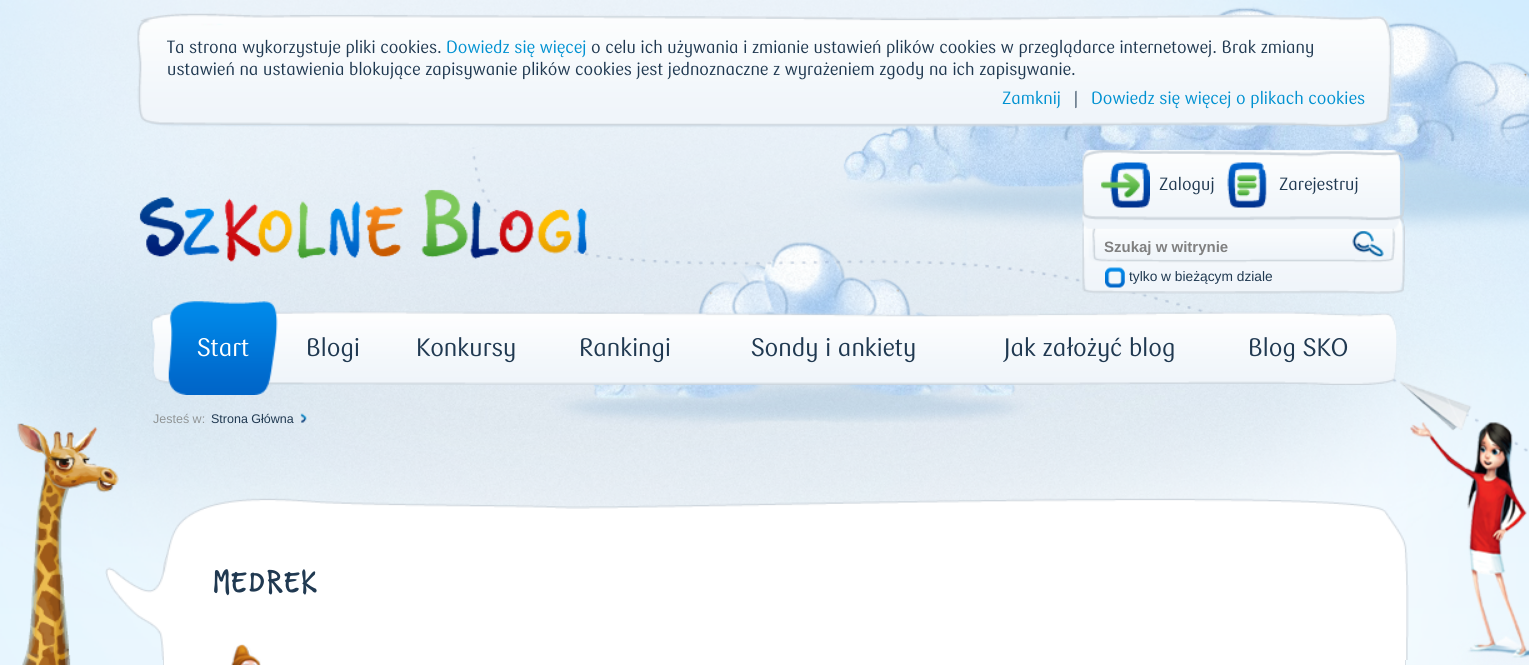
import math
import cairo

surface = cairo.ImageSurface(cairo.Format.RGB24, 1529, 665)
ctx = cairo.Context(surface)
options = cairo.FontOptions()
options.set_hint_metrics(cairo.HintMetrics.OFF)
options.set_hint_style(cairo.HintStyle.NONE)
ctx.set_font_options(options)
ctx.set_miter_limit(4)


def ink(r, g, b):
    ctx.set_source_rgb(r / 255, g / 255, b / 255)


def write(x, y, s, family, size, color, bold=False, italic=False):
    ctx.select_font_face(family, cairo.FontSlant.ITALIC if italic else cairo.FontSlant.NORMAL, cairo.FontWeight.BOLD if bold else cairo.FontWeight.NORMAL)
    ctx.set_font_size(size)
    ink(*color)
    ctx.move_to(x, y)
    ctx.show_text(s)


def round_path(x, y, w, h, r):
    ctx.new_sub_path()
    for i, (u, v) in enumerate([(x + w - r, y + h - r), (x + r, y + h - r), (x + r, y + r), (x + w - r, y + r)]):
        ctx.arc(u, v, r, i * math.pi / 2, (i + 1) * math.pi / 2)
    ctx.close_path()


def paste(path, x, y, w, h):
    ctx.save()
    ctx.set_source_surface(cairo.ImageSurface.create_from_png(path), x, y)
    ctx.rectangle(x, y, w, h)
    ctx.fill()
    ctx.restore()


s1 = dict(family="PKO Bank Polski", size=17.5, color=(32, 57, 81))
s2 = dict(family="PKO Bank Polski", size=17.5, color=(0, 145, 209))
s3 = dict(family="Liberation Sans", size=15, color=(128, 128, 128), bold=True)
s4 = dict(family="Liberation Sans", size=13.75, color=(32, 57, 81))
s5 = dict(family="PKO Bank Polski", size=25, color=(255, 255, 255))
s6 = dict(family="PKO Bank Polski", size=25, color=(32, 57, 81))
s7 = dict(family="Liberation Sans", size=12.5, color=(145, 149, 150))
s8 = dict(family="Liberation Sans", size=12.5, color=(32, 57, 81))
s9 = dict(family="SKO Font", size=25, color=(32, 57, 81))

ink(255, 255, 255)
ctx.paint()
paste("pic1.png", 0, 0, 1529, 665)
paste("pic2.png", 137, 13, 1257, 115)
write(167, 53, "Ta strona wykorzystuje pliki cookies.", **s1)
write(446, 53, "Dowiedz się więcej", **s2)
write(591, 53, "o celu ich używania i zmianie ustawień plików cookies w przeglądarce internetowej. Brak zmiany", **s1)
write(167, 75, "ustawień na ustawienia blokujące zapisywanie plików cookies jest jednoznaczne z wyrażeniem zgody na ich zapisywanie.", **s1)
write(1002, 104, "Zamknij", **s2)
write(1073, 104, "|", **s1)
write(1091, 104, "Dowiedz się więcej o plikach cookies", **s2)
paste("pic3.png", 17, 147, 1512, 518)
paste("pic4.png", 139, 189, 448, 73)
paste("pic5.png", 1082, 149, 323, 145)
paste("pic6.png", 1101, 162, 49, 46)
write(1159, 190, "Zaloguj", **s1)
paste("pic7.png", 1227, 162, 40, 46)
write(1279, 190, "Zarejestruj", **s1)
write(1104, 252, "Szukaj w witrynie", **s3)
paste("pic8.png", 1352, 231, 32, 26)
paste("pic9.png", 1105, 267, 20, 21)
write(1129, 281, "tylko w bieżącym dziale", **s4)
paste("pic10.png", 151, 310, 1246, 75)
paste("pic11.png", 168, 301, 110, 94)
write(197, 356, "Start", **s5)
write(306, 356, "Blogi", **s6)
write(416, 356, "Konkursy", **s6)
write(579, 356, "Rankingi", **s6)
write(751, 356, "Sondy i ankiety", **s6)
write(1004, 356, "Jak założyć blog", **s6)
write(1248, 356, "Blog SKO", **s6)
write(153, 423, "Jesteś w:", **s7)
write(211, 423, "Strona Główna", **s8)
paste("pic12.png", 300, 413, 7, 10)
ink(255, 255, 255)
round_path(163.5, 529.5, 1242, 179, 42.5)
ctx.fill_preserve()
ink(217, 224, 230)
ctx.set_line_width(1)
ctx.stroke()
paste("pic13.png", 105, 498, 1304, 162)
write(213, 591, "MEDREK", **s9)
paste("pic14.png", 231, 644, 30, 21)
surface.write_to_png("screenshot.png")
